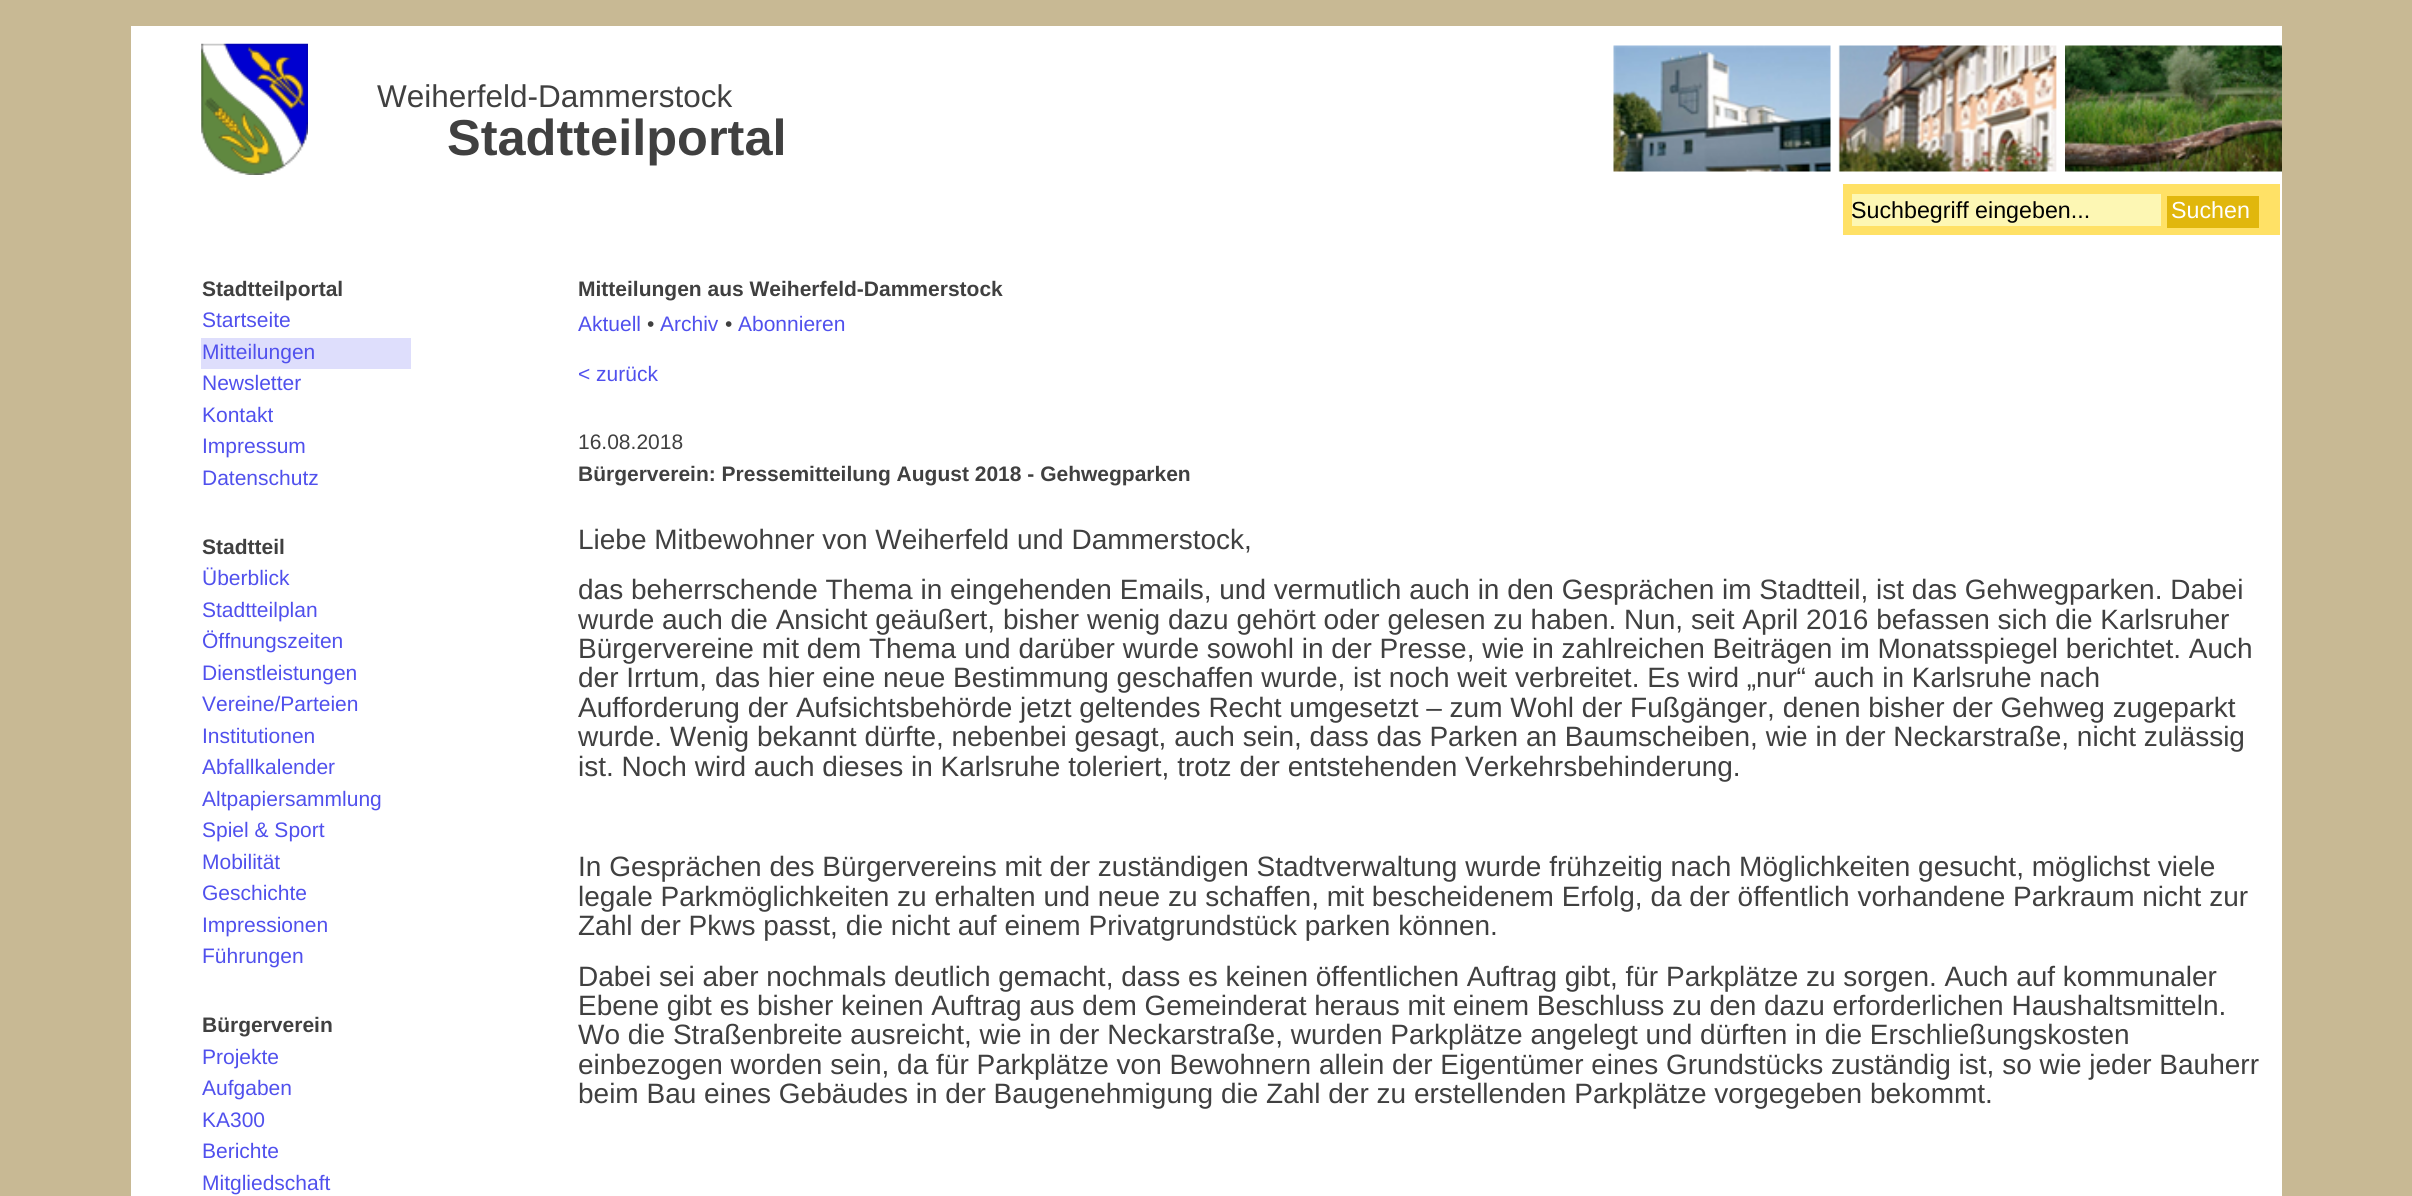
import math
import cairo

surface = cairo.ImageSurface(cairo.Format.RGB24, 2412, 1196)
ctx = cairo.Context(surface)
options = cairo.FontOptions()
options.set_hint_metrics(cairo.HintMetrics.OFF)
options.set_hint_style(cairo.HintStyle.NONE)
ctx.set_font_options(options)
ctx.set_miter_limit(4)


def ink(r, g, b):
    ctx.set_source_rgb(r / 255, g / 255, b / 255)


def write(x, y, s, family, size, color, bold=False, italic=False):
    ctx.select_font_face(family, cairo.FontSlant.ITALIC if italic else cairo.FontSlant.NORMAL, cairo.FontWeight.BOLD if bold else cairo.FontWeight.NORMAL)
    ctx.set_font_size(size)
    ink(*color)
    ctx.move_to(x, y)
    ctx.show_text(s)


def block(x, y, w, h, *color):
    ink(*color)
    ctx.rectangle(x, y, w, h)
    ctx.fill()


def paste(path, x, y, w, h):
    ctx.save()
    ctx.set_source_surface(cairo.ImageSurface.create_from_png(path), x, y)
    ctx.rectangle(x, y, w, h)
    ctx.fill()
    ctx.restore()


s1 = dict(family="Liberation Sans", size=31.5, color=(64, 64, 64))
s2 = dict(family="Liberation Sans", size=50.5, color=(64, 64, 64), bold=True)
s3 = dict(family="Liberation Sans", size=23.25, color=(0, 0, 0))
s4 = dict(family="Liberation Sans", size=23.25, color=(255, 255, 255))
s5 = dict(family="Liberation Sans", size=21, color=(64, 64, 64), bold=True)
s6 = dict(family="Liberation Sans", size=21, color=(80, 80, 237))
s7 = dict(family="Liberation Sans", size=21, color=(64, 64, 64))
s8 = dict(family="Liberation Sans", size=28, color=(64, 64, 64))

ink(200, 185, 148)
ctx.paint()
block(131, 26, 2151, 1170, 255, 255, 255)
paste("pic1.png", 201, 43, 107, 132)
write(377, 107, "Weiherfeld-Dammerstock", **s1)
write(447, 155, "Stadtteilportal", **s2)
paste("pic2.png", 1613, 45, 218, 127)
paste("pic3.png", 1838, 45, 219, 127)
paste("pic4.png", 2065, 45, 217, 127)
block(1843, 184, 437, 51, 255, 225, 102)
block(1852, 194, 309, 32, 253, 247, 180)
write(1851, 218, "Suchbegriff eingeben...", **s3)
block(2167, 196, 92, 32, 225, 183, 12)
write(2171, 218, "Suchen", **s4)
write(202, 296, "Stadtteilportal", **s5)
write(202, 327, "Startseite", **s6)
block(201, 338, 210, 31, 222, 222, 252)
write(202, 359, "Mitteilungen", **s6)
write(202, 390, "Newsletter", **s6)
write(202, 422, "Kontakt", **s6)
write(202, 453, "Impressum", **s6)
write(202, 485, "Datenschutz", **s6)
write(202, 554, "Stadtteil", **s5)
write(202, 585, "Überblick", **s6)
write(202, 617, "Stadtteilplan", **s6)
write(202, 648, "Öffnungszeiten", **s6)
write(202, 680, "Dienstleistungen", **s6)
write(202, 711, "Vereine/Parteien", **s6)
write(202, 743, "Institutionen", **s6)
write(202, 774, "Abfallkalender", **s6)
write(202, 806, "Altpapiersammlung", **s6)
write(202, 837, "Spiel & Sport", **s6)
write(202, 869, "Mobilität", **s6)
write(202, 900, "Geschichte", **s6)
write(202, 932, "Impressionen", **s6)
write(202, 963, "Führungen", **s6)
write(202, 1032, "Bürgerverein", **s5)
write(202, 1064, "Projekte", **s6)
write(202, 1095, "Aufgaben", **s6)
write(202, 1127, "KA300", **s6)
write(202, 1158, "Berichte", **s6)
write(202, 1190, "Mitgliedschaft", **s6)
write(578, 296, "Mitteilungen aus Weiherfeld-Dammerstock", **s5)
write(578, 331, "Aktuell", **s6)
write(647, 331, "•", **s7)
write(660, 331, "Archiv", **s6)
write(725, 331, "•", **s7)
write(738, 331, "Abonnieren", **s6)
write(578, 381, "< zurück", **s6)
write(578, 449, "16.08.2018", **s7)
write(578, 481, "Bürgerverein: Pressemitteilung August 2018 - Gehwegparken", **s5)
write(578, 549, "Liebe Mitbewohner von Weiherfeld und Dammerstock,", **s8)
write(578, 599, "das beherrschende Thema in eingehenden Emails, und vermutlich auch in den Gesprächen im Stadtteil, ist das Gehwegparken. Dabei", **s8)
write(578, 629, "wurde auch die Ansicht geäußert, bisher wenig dazu gehört oder gelesen zu haben. Nun, seit April 2016 befassen sich die Karlsruher", **s8)
write(578, 658, "Bürgervereine mit dem Thema und darüber wurde sowohl in der Presse, wie in zahlreichen Beiträgen im Monatsspiegel berichtet. Auch", **s8)
write(578, 687, "der Irrtum, das hier eine neue Bestimmung geschaffen wurde, ist noch weit verbreitet. Es wird „nur“ auch in Karlsruhe nach", **s8)
write(578, 717, "Aufforderung der Aufsichtsbehörde jetzt geltendes Recht umgesetzt – zum Wohl der Fußgänger, denen bisher der Gehweg zugeparkt", **s8)
write(578, 746, "wurde. Wenig bekannt dürfte, nebenbei gesagt, auch sein, dass das Parken an Baumscheiben, wie in der Neckarstraße, nicht zulässig", **s8)
write(578, 776, "ist. Noch wird auch dieses in Karlsruhe toleriert, trotz der entstehenden Verkehrsbehinderung.", **s8)
write(578, 876, "In Gesprächen des Bürgervereins mit der zuständigen Stadtverwaltung wurde frühzeitig nach Möglichkeiten gesucht, möglichst viele", **s8)
write(578, 906, "legale Parkmöglichkeiten zu erhalten und neue zu schaffen, mit bescheidenem Erfolg, da der öffentlich vorhandene Parkraum nicht zur", **s8)
write(578, 935, "Zahl der Pkws passt, die nicht auf einem Privatgrundstück parken können.", **s8)
write(578, 986, "Dabei sei aber nochmals deutlich gemacht, dass es keinen öffentlichen Auftrag gibt, für Parkplätze zu sorgen. Auch auf kommunaler", **s8)
write(578, 1015, "Ebene gibt es bisher keinen Auftrag aus dem Gemeinderat heraus mit einem Beschluss zu den dazu erforderlichen Haushaltsmitteln.", **s8)
write(578, 1044, "Wo die Straßenbreite ausreicht, wie in der Neckarstraße, wurden Parkplätze angelegt und dürften in die Erschließungskosten", **s8)
write(578, 1074, "einbezogen worden sein, da für Parkplätze von Bewohnern allein der Eigentümer eines Grundstücks zuständig ist, so wie jeder Bauherr", **s8)
write(578, 1103, "beim Bau eines Gebäudes in der Baugenehmigung die Zahl der zu erstellenden Parkplätze vorgegeben bekommt.", **s8)
surface.write_to_png("screenshot.png")
